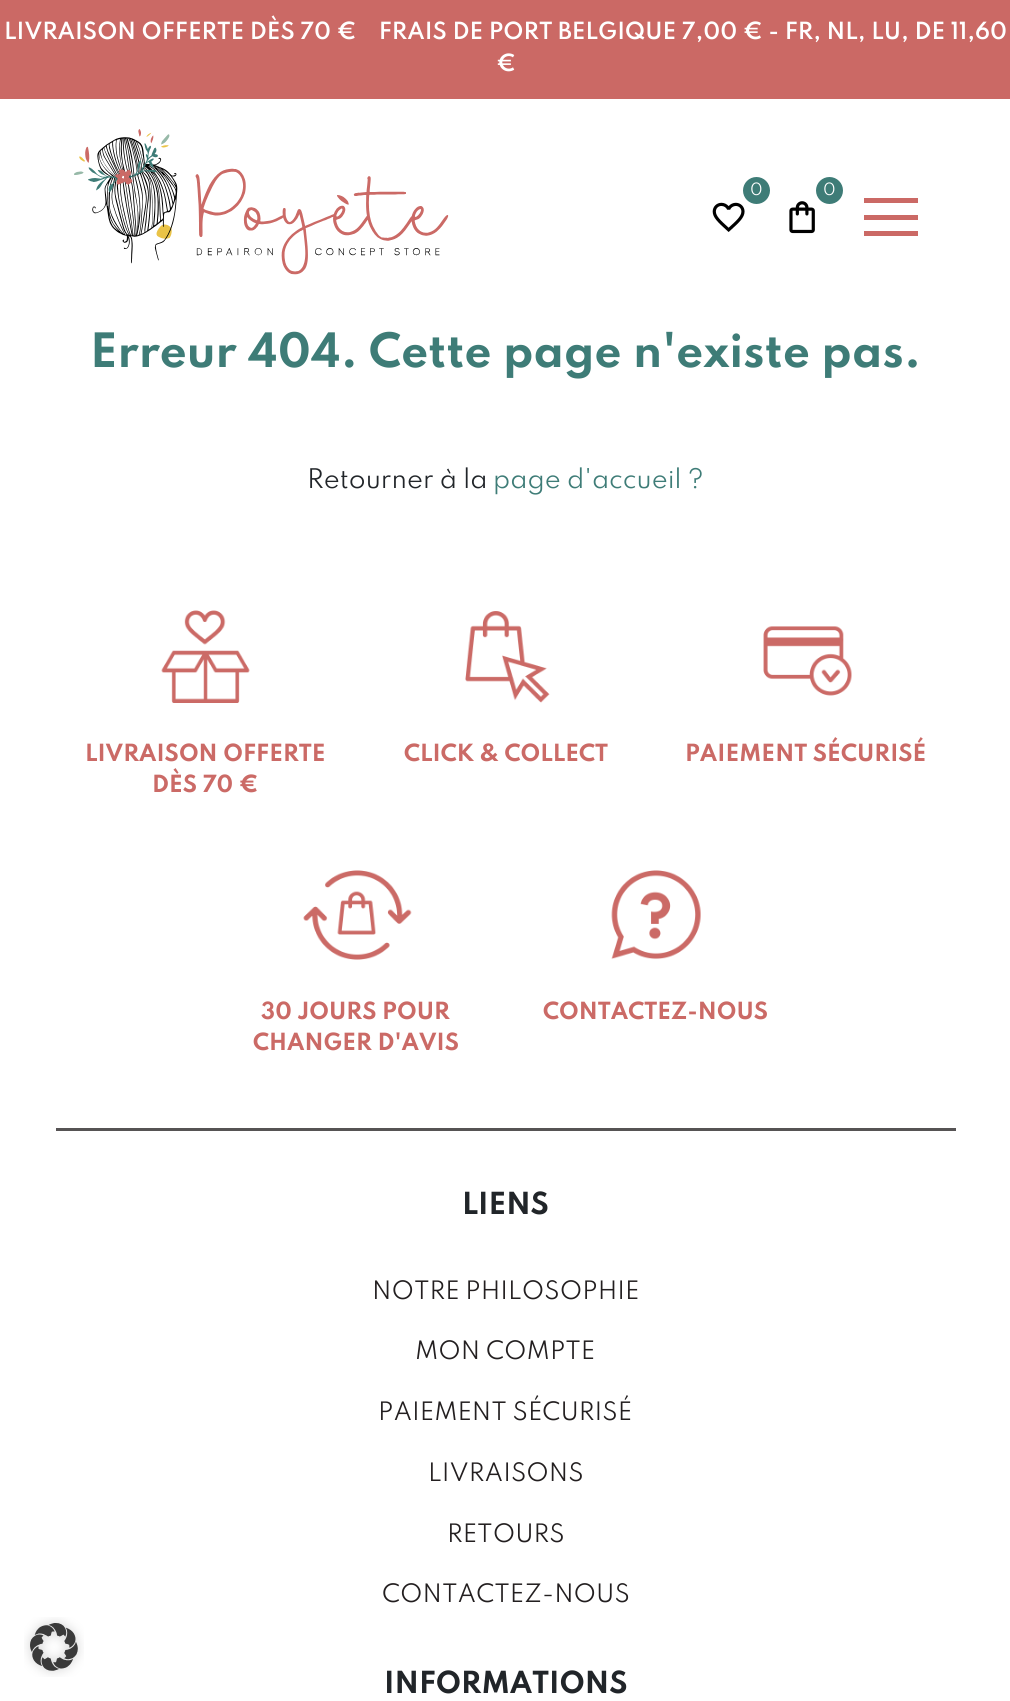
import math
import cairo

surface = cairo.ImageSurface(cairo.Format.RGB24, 1010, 1701)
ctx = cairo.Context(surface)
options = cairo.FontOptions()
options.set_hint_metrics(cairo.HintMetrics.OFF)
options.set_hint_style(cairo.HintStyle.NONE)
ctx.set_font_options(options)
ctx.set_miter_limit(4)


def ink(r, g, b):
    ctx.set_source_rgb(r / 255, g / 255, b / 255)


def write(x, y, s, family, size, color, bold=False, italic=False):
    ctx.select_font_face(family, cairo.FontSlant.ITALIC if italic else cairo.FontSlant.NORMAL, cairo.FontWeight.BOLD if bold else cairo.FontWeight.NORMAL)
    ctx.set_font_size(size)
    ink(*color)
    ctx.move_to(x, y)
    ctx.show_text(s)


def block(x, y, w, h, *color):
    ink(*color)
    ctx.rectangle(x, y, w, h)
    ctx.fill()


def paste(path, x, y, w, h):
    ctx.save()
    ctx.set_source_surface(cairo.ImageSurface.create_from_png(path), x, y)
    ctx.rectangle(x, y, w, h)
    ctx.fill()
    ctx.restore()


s1 = dict(family="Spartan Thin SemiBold", size=21, color=(255, 255, 255))
s2 = dict(family="Spartan Thin", size=15, color=(255, 255, 255))
s3 = dict(family="Spartan Thin", size=42, color=(62, 124, 119), bold=True)
s4 = dict(family="Spartan Thin", size=24, color=(33, 37, 41))
s5 = dict(family="Spartan Thin", size=24, color=(62, 124, 119))
s6 = dict(family="Spartan Thin", size=21, color=(203, 106, 102), bold=True)
s7 = dict(family="Spartan Thin", size=27, color=(33, 37, 41), bold=True)
s8 = dict(family="Spartan Thin", size=22.5, color=(35, 31, 32))

ink(255, 255, 255)
ctx.paint()
block(0, 0, 1010, 99, 203, 105, 101)
write(4, 39, "LIVRAISON OFFERTE DÈS 70 €    FRAIS DE PORT BELGIQUE 7,00 € - FR, NL, LU, DE 11,60", **s1)
write(496, 71, "€", **s1)
paste("pic1.png", 74, 129, 375, 146)
paste("pic2.png", 712, 202, 33, 30)
ink(62, 124, 119)
ctx.arc(756.5, 190.5, 13.5, 0, 2 * math.pi)
ctx.fill()
write(750, 195, "0", **s2)
paste("pic3.png", 789, 201, 26, 33)
ink(62, 124, 119)
ctx.arc(829.5, 190.5, 13.5, 0, 2 * math.pi)
ctx.fill()
write(823, 195, "0", **s2)
block(864, 198, 54, 5, 203, 105, 101)
block(864, 215, 54, 5, 203, 105, 101)
block(864, 231, 54, 5, 203, 105, 101)
write(90, 367, "Erreur 404. Cette page n'existe pas.", **s3)
write(307, 488, "Retourner à la", **s4)
write(493, 488, "page d'accueil ?", **s5)
paste("pic4.png", 161, 610, 89, 93)
write(85, 761, "LIVRAISON OFFERTE", **s6)
write(152, 792, "DÈS 70 €", **s6)
paste("pic5.png", 465, 611, 85, 92)
write(404, 761, "CLICK & COLLECT", **s6)
paste("pic6.png", 763, 626, 89, 70)
write(685, 761, "PAIEMENT SÉCURISÉ", **s6)
paste("pic7.png", 303, 870, 109, 90)
write(261, 1019, "30 JOURS POUR", **s6)
write(253, 1050, "CHANGER D'AVIS", **s6)
paste("pic8.png", 611, 870, 90, 90)
write(543, 1019, "CONTACTEZ-NOUS", **s6)
block(56, 1128, 900, 3, 86, 83, 84)
write(462, 1214, "LIENS", **s7)
write(372, 1299, "NOTRE PHILOSOPHIE", **s8)
write(415, 1359, "MON COMPTE", **s8)
write(378, 1420, "PAIEMENT SÉCURISÉ", **s8)
write(428, 1481, "LIVRAISONS", **s8)
write(447, 1542, "RETOURS", **s8)
write(382, 1602, "CONTACTEZ-NOUS", **s8)
write(384, 1693, "INFORMATIONS", **s7)
paste("pic9.png", 24, 1617, 60, 60)
surface.write_to_png("screenshot.png")
